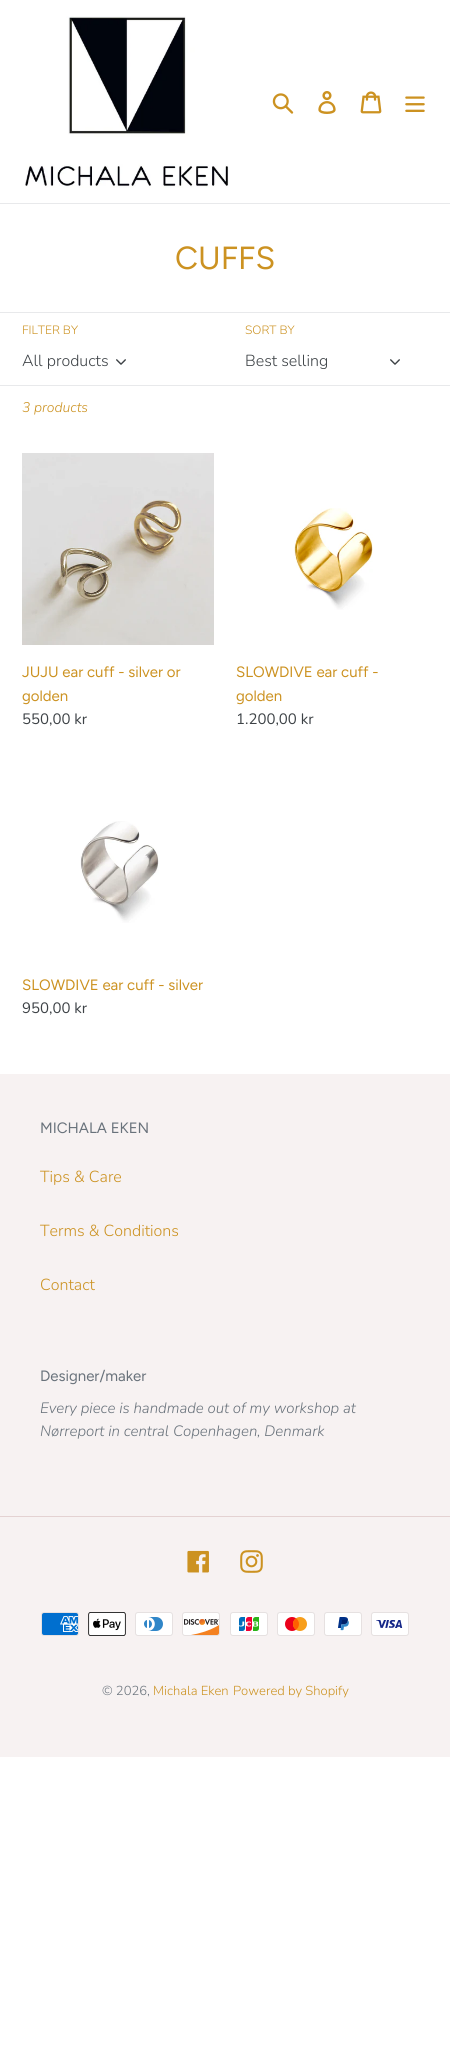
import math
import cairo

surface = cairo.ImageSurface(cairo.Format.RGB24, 450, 2067)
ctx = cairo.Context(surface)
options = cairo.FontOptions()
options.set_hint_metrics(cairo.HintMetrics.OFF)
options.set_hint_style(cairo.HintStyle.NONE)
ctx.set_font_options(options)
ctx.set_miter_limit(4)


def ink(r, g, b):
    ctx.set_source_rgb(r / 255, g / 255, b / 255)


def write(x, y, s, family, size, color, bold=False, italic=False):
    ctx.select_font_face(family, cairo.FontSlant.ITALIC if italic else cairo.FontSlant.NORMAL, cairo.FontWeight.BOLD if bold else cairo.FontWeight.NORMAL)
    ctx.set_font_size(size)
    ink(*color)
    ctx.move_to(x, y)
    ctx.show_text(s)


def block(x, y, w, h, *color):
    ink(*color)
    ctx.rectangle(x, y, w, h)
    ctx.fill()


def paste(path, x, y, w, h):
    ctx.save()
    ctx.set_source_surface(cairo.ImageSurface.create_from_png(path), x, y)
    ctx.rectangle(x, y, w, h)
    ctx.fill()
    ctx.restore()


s1 = dict(family="Figtree", size=32, color=(204, 146, 33))
s2 = dict(family="Nunito Light", size=12, color=(204, 146, 33))
s3 = dict(family="Nunito Light", size=16, color=(61, 66, 70))
s4 = dict(family="Nunito Light", size=14, color=(204, 146, 33), italic=True)
s5 = dict(family="Figtree", size=15, color=(204, 146, 33))
s6 = dict(family="Nunito", size=15, color=(61, 66, 70))
s7 = dict(family="Figtree", size=15, color=(105, 114, 123))
s8 = dict(family="Nunito Light", size=16, color=(204, 146, 33))
s9 = dict(family="Nunito Light", size=15, color=(105, 114, 123), italic=True)
s10 = dict(family="Nunito Light", size=13, color=(105, 114, 123))
s11 = dict(family="Nunito Light", size=13, color=(204, 146, 33))

ink(255, 255, 255)
ctx.paint()
block(0, 203, 450, 1, 232, 233, 235)
paste("pic1.png", 25, 16, 204, 172)
paste("pic2.png", 272, 93, 22, 21)
paste("pic3.png", 318, 91, 18, 23)
paste("pic4.png", 360, 91, 22, 23)
paste("pic5.png", 405, 96, 20, 16)
write(175, 269, "CUFFS", **s1)
block(0, 312, 450, 1, 232, 233, 235)
write(22, 334, "FILTER BY", **s2)
write(22, 366, "All products", **s3)
paste("pic6.png", 116, 359, 10, 6)
write(245, 334, "SORT BY", **s2)
write(245, 366, "Best selling", **s3)
paste("pic6.png", 390, 359, 10, 6)
block(0, 385, 450, 1, 232, 233, 235)
write(22, 412, "3 products", **s4)
paste("pic7.png", 22, 453, 192, 192)
write(22, 677, "JUJU ear cuff - silver or", **s5)
write(22, 701, "golden", **s5)
write(22, 724, "550,00 kr", **s6)
paste("pic8.png", 294, 508, 79, 102)
write(236, 677, "SLOWDIVE ear cuff -", **s5)
write(236, 701, "golden", **s5)
write(236, 724, "1.200,00 kr", **s6)
paste("pic9.png", 80, 821, 79, 102)
write(22, 990, "SLOWDIVE ear cuff - silver", **s5)
write(22, 1013, "950,00 kr", **s6)
block(0, 1074, 450, 683, 247, 242, 242)
write(40, 1133, "MICHALA EKEN", **s7)
write(40, 1182, "Tips & Care", **s8)
write(40, 1236, "Terms & Conditions", **s8)
write(40, 1290, "Contact", **s8)
write(40, 1381, "Designer/maker", **s7)
write(40, 1413, "Every piece is handmade out of my workshop at", **s9)
write(40, 1436, "Nørreport in central Copenhagen, Denmark", **s9)
block(0, 1516, 450, 1, 228, 210, 210)
paste("pic10.png", 187, 1550, 22, 23)
paste("pic11.png", 240, 1550, 23, 23)
paste("pic12.png", 41, 1612, 38, 24)
paste("pic13.png", 88, 1612, 38, 24)
paste("pic14.png", 135, 1612, 38, 24)
paste("pic15.png", 182, 1612, 38, 24)
paste("pic16.png", 230, 1612, 38, 24)
paste("pic17.png", 277, 1612, 38, 24)
paste("pic18.png", 324, 1612, 38, 24)
paste("pic19.png", 371, 1612, 38, 24)
write(102, 1695, "© 2026,", **s10)
write(153, 1695, "Michala Eken", **s11)
write(233, 1695, "Powered by Shopify", **s11)
surface.write_to_png("screenshot.png")
